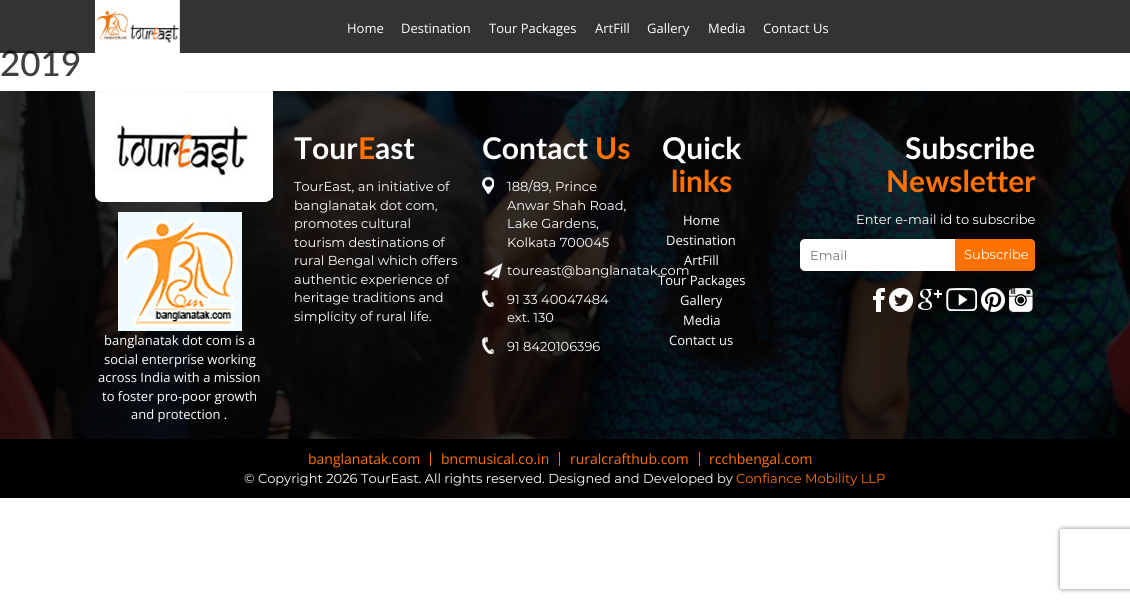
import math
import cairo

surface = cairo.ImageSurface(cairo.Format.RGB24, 1130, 603)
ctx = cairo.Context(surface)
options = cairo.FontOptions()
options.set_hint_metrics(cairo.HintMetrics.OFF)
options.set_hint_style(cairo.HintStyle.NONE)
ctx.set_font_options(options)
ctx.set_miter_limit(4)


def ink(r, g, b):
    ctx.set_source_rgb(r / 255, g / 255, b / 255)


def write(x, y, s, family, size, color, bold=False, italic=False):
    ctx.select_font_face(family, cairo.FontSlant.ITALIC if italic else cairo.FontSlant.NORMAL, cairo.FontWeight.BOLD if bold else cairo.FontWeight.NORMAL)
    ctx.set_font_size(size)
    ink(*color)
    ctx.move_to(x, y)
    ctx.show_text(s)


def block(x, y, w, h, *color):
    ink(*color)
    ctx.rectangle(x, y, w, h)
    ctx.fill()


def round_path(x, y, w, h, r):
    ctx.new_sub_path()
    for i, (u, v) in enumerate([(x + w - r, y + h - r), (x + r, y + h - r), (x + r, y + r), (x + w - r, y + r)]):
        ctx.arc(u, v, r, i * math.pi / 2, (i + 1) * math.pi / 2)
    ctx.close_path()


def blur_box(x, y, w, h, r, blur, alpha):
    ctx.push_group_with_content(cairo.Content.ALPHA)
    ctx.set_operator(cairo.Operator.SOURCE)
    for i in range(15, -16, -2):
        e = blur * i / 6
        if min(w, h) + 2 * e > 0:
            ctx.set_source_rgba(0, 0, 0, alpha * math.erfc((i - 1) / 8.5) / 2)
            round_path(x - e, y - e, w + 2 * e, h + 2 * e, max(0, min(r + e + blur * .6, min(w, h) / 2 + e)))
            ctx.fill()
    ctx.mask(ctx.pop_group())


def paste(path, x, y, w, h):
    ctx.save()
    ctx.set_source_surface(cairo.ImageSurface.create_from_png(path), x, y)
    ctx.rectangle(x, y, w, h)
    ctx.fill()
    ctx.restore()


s1 = dict(family="Lato Medium", size=35, color=(65, 65, 65))
s2 = dict(family="Open Sans", size=13, color=(255, 255, 255))
s3 = dict(family="Lato", size=30, color=(255, 255, 255), bold=True)
s4 = dict(family="Lato", size=30, color=(255, 114, 0), bold=True)
s5 = dict(family="Montserrat Thin", size=13, color=(255, 255, 255))
s6 = dict(family="Montserrat Thin", size=13, color=(117, 117, 117))
s7 = dict(family="Open Sans", size=14, color=(255, 114, 0))
s8 = dict(family="Montserrat Thin", size=13, color=(255, 114, 0))

ink(255, 255, 255)
ctx.paint()
write(0, 76, "2019", **s1)
ctx.set_source_rgba(0, 0, 0, 0.8)
ctx.rectangle(0, 0, 1130, 53)
ctx.fill()
paste("pic1.png", 95, 0, 85, 53)
write(347, 33, "Home", **s2)
write(401, 33, "Destination", **s2)
write(489, 33, "Tour Packages", **s2)
write(595, 33, "ArtFill", **s2)
write(647, 33, "Gallery", **s2)
write(708, 33, "Media", **s2)
write(763, 33, "Contact Us", **s2)
paste("pic2.png", 0, 91, 1130, 348)
write(294, 159, "Tour", **s3)
write(358, 159, "E", **s4)
write(375, 159, "ast", **s3)
write(294, 191, "TourEast, an initiative of", **s5)
write(294, 210, "banglanatak dot com,", **s5)
write(294, 228, "promotes cultural", **s5)
write(294, 247, "tourism destinations of", **s5)
write(294, 265, "rural Bengal which offers", **s5)
write(294, 284, "authentic experience of", **s5)
write(294, 302, "heritage traditions and", **s5)
write(294, 321, "simplicity of rural life.", **s5)
write(482, 159, "Contact", **s3)
write(595, 159, "Us", **s4)
paste("pic3.png", 482, 177, 12, 17)
write(507, 191, "188/89, Prince", **s5)
write(507, 210, "Anwar Shah Road,", **s5)
write(507, 228, "Lake Gardens,", **s5)
write(507, 247, "Kolkata 700045", **s5)
paste("pic4.png", 483, 263, 20, 17)
write(507, 275, "toureast@banglanatak.com", **s5)
paste("pic5.png", 482, 290, 12, 17)
write(507, 304, "91 33 40047484", **s5)
write(507, 322, "ext. 130", **s5)
paste("pic6.png", 482, 337, 12, 17)
write(507, 351, "91 8420106396", **s5)
write(662, 159, "Quick", **s3)
write(671, 192, "links", **s4)
write(683, 225, "Home", **s2)
write(666, 245, "Destination", **s2)
write(684, 265, "ArtFill", **s2)
write(658, 285, "Tour Packages", **s2)
write(680, 305, "Gallery", **s2)
write(683, 325, "Media", **s2)
write(669, 345, "Contact us", **s2)
write(905, 159, "Subscribe", **s3)
write(886, 192, "Newsletter", **s4)
write(856, 224, "Enter e-mail id to subscribe", **s5)
round_path(800, 239, 235, 32, 5)
ctx.fill()
write(810, 260, "Email", **s6)
ink(255, 114, 0)
ctx.new_path()
ctx.move_to(955, 239)
ctx.line_to(1030, 239)
ctx.curve_to(1033, 239, 1035, 241, 1035, 244)
ctx.line_to(1035, 266)
ctx.curve_to(1035, 269, 1033, 271, 1030, 271)
ctx.line_to(955, 271)
ctx.close_path()
ctx.fill()
write(964, 259, "Subscribe", **s5)
paste("pic7.png", 873, 288, 12, 24)
paste("pic8.png", 889, 288, 24, 24)
paste("pic9.png", 918, 289, 24, 21)
paste("pic10.png", 946, 288, 31, 23)
paste("pic11.png", 981, 288, 24, 24)
paste("pic12.png", 1009, 288, 24, 24)
paste("pic13.png", 95, 91, 178, 111)
paste("pic14.png", 118, 212, 124, 119)
write(104, 345, "banglanatak dot com is a", **s2)
write(104, 364, "social enterprise working", **s2)
write(98, 382, "across India with a mission", **s2)
write(102, 401, "to foster pro-poor growth", **s2)
write(131, 419, "and protection .", **s2)
block(0, 439, 1130, 59, 0, 0, 0)
block(430, 452, 1, 14, 255, 114, 0)
write(308, 464, "banglanatak.com", **s7)
block(559, 452, 1, 14, 255, 114, 0)
write(441, 464, "bncmusical.co.in", **s7)
block(699, 452, 1, 14, 255, 114, 0)
write(570, 464, "ruralcrafthub.com", **s7)
write(709, 464, "rcchbengal.com", **s7)
write(244, 483, "© Copyright 2026 TourEast. All rights reserved. Designed and Developed by", **s5)
write(736, 483, "Confiance Mobility LLP", **s8)
ctx.save()
ctx.set_fill_rule(cairo.FillRule.EVEN_ODD)
ctx.new_path()
ctx.move_to(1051, 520)
ctx.line_to(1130, 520)
ctx.line_to(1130, 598)
ctx.line_to(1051, 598)
ctx.close_path()
ctx.move_to(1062, 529)
ctx.line_to(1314, 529)
ctx.curve_to(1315, 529, 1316, 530, 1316, 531)
ctx.line_to(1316, 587)
ctx.curve_to(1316, 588, 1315, 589, 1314, 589)
ctx.line_to(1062, 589)
ctx.curve_to(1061, 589, 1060, 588, 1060, 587)
ctx.line_to(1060, 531)
ctx.curve_to(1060, 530, 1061, 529, 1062, 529)
ctx.close_path()
ctx.clip()
ink(128, 128, 128)
blur_box(1060, 529, 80, 60, 2, 2.5, 1)
ctx.restore()
surface.write_to_png("screenshot.png")
